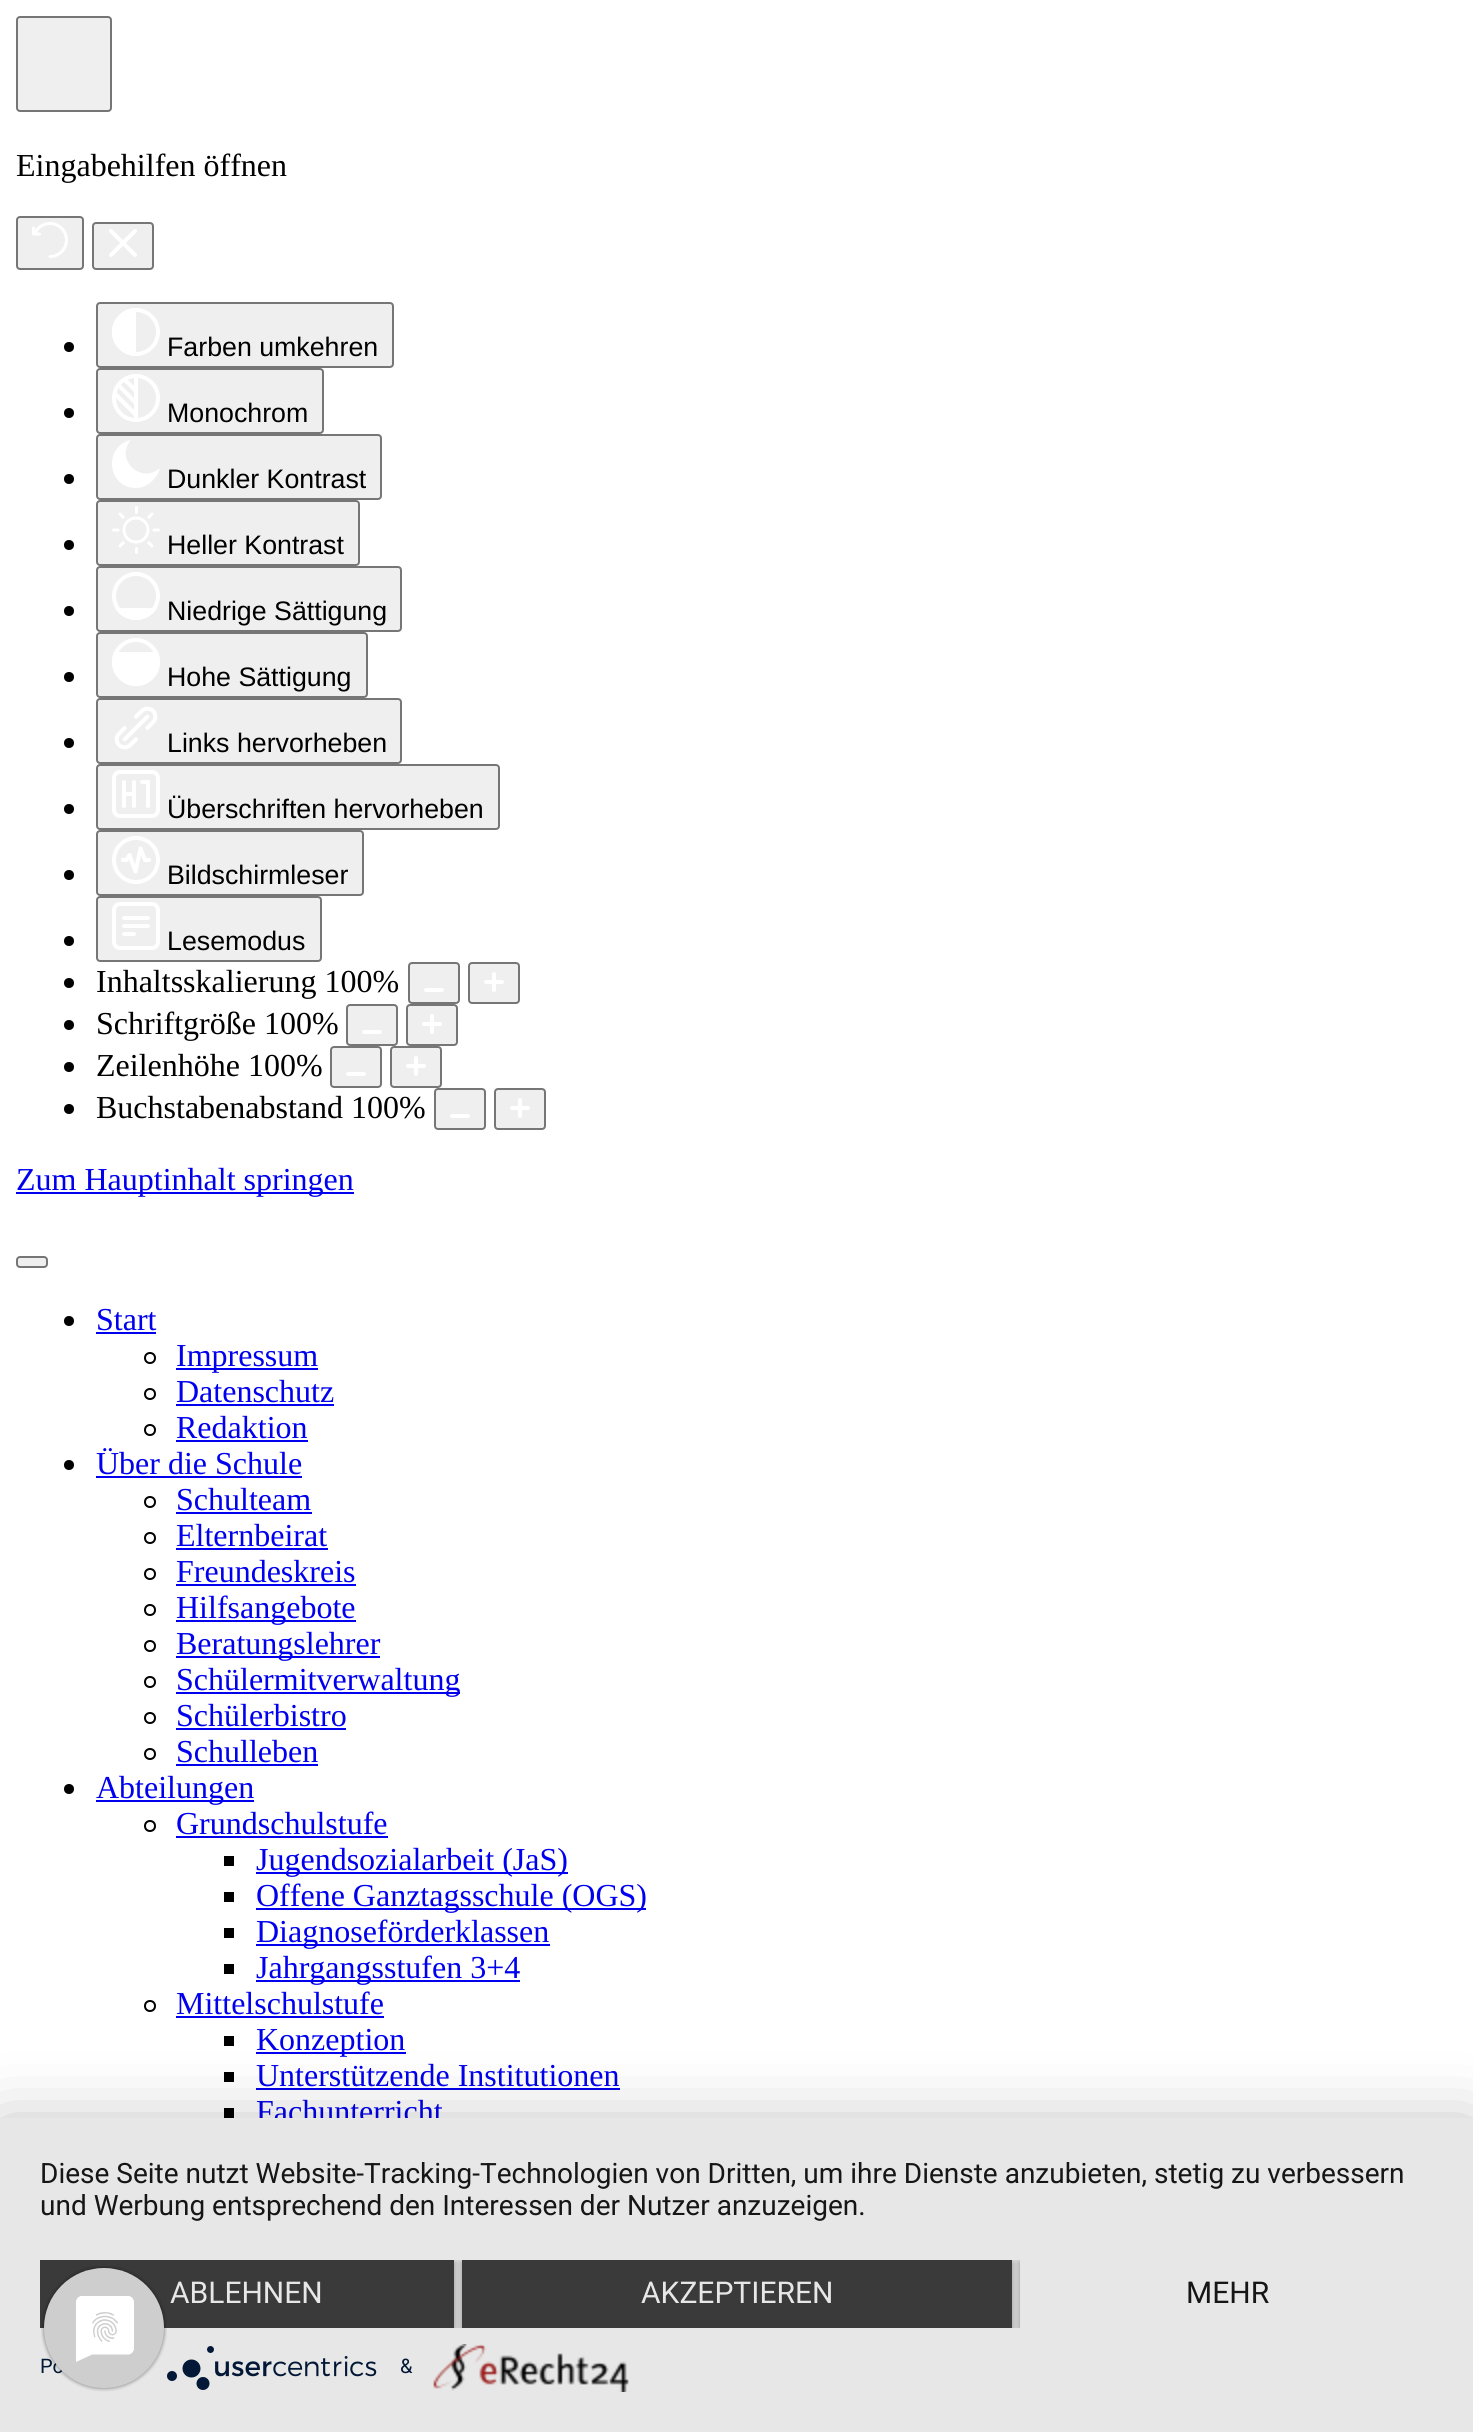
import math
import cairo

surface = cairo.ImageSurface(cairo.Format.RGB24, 1473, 2432)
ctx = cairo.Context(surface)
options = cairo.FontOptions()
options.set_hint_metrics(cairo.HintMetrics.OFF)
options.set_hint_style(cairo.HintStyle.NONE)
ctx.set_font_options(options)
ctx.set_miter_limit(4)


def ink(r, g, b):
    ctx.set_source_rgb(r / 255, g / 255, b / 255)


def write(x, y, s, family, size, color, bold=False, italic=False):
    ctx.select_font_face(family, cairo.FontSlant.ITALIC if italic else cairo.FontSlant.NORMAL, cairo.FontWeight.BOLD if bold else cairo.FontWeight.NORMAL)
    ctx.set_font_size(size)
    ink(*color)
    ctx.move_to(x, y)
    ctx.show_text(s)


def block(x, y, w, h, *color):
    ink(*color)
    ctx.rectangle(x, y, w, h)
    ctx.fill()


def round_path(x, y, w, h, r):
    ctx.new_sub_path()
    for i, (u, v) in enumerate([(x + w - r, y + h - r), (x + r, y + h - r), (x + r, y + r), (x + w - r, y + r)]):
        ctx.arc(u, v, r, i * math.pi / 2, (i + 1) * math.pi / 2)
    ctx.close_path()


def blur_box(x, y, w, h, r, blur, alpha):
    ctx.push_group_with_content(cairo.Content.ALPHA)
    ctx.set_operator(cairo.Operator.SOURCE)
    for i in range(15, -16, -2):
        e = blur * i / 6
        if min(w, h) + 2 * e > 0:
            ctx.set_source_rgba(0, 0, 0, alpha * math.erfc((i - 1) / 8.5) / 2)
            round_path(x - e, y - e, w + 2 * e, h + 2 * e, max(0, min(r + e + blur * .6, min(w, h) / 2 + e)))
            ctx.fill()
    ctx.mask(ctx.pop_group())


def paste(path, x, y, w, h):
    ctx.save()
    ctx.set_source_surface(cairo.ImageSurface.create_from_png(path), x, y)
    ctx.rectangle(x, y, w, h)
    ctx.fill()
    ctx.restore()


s1 = dict(family="Liberation Serif", size=32, color=(0, 0, 0))
s2 = dict(family="Liberation Sans", size=26.75, color=(0, 0, 0))
s3 = dict(family="Liberation Serif", size=32, color=(0, 0, 238))
s4 = dict(family="Roboto", size=28, color=(22, 22, 22))
s5 = dict(family="Roboto", size=30, color=(231, 231, 231))
s6 = dict(family="Roboto", size=30, color=(22, 22, 22))
s7 = dict(family="Roboto", size=20, color=(2, 24, 54))

ink(255, 255, 255)
ctx.paint()
ink(239, 239, 239)
round_path(17, 17, 94, 94, 3)
ctx.fill_preserve()
ink(118, 118, 118)
ctx.stroke()
write(16, 176, "Eingabehilfen öffnen", **s1)
ink(239, 239, 239)
round_path(17, 217, 66, 52, 3)
ctx.fill_preserve()
ink(118, 118, 118)
ctx.stroke()
paste("pic1.png", 32, 222, 36, 36)
ink(239, 239, 239)
round_path(93, 223, 60, 46, 3)
ctx.fill_preserve()
ink(118, 118, 118)
ctx.stroke()
ctx.new_path()
ctx.move_to(111, 231)
ctx.line_to(135, 255)
ctx.move_to(135, 231)
ctx.line_to(111, 255)
ink(255, 255, 255)
ctx.set_line_width(4)
ctx.set_line_cap(cairo.LineCap.ROUND)
ctx.stroke()
ink(0, 0, 0)
ctx.arc(69, 347, 5, 0, 2 * math.pi)
ctx.fill()
ink(239, 239, 239)
round_path(97, 303, 296, 64, 3)
ctx.fill_preserve()
ink(118, 118, 118)
ctx.set_line_width(2)
ctx.set_line_cap(cairo.LineCap.BUTT)
ctx.stroke()
ctx.arc(136, 332, 22, 0, 2 * math.pi)
ink(255, 255, 255)
ctx.set_line_width(4)
ctx.stroke()
ctx.new_path()
ctx.move_to(112, 332)
ctx.curve_to(112, 319, 123, 308, 136, 308)
ctx.line_to(136, 356)
ctx.curve_to(123, 356, 112, 345, 112, 332)
ctx.close_path()
ctx.fill()
write(167, 356, "Farben umkehren", **s2)
ctx.new_path()
ctx.arc(69, 413, 5, 0, 2 * math.pi)
ctx.fill()
ink(239, 239, 239)
round_path(97, 369, 226, 64, 3)
ctx.fill_preserve()
ink(118, 118, 118)
ctx.set_line_width(2)
ctx.stroke()
ctx.arc(136, 398, 22, 0, 2 * math.pi)
ink(255, 255, 255)
ctx.set_line_width(4)
ctx.stroke()
ctx.new_path()
ctx.move_to(136, 377)
ctx.line_to(136, 419)
ctx.set_line_cap(cairo.LineCap.ROUND)
ctx.stroke()
ctx.new_path()
ctx.move_to(122, 380)
ctx.line_to(125.5, 377.5)
ctx.line_to(138, 390)
ctx.line_to(138, 396)
ctx.close_path()
ctx.fill()
ctx.new_path()
ctx.move_to(117, 386.5)
ctx.line_to(119, 383)
ctx.line_to(138, 402)
ctx.line_to(138, 408)
ctx.close_path()
ctx.fill()
ctx.new_path()
ctx.move_to(114, 396)
ctx.line_to(115, 391)
ctx.line_to(138, 414)
ctx.line_to(138, 420)
ctx.close_path()
ctx.fill()
write(167, 422, "Monochrom", **s2)
ctx.new_path()
ctx.arc(69, 479, 5, 0, 2 * math.pi)
ctx.fill()
ink(239, 239, 239)
round_path(97, 435, 284, 64, 3)
ctx.fill_preserve()
ink(118, 118, 118)
ctx.set_line_width(2)
ctx.set_line_cap(cairo.LineCap.BUTT)
ctx.stroke()
ink(255, 255, 255)
ctx.new_path()
ctx.move_to(136, 488)
ctx.curve_to(107, 488, 103, 446, 131, 440)
ctx.curve_to(114, 459, 141, 485, 160, 468)
ctx.curve_to(157, 479, 147, 488, 136, 488)
ctx.close_path()
ctx.fill()
write(167, 488, "Dunkler Kontrast", **s2)
ctx.new_path()
ctx.arc(69, 545, 5, 0, 2 * math.pi)
ctx.fill()
ink(239, 239, 239)
round_path(97, 501, 262, 64, 3)
ctx.fill_preserve()
ink(118, 118, 118)
ctx.stroke()
paste("pic2.png", 112, 506, 48, 48)
write(167, 554, "Heller Kontrast", **s2)
ctx.new_path()
ctx.arc(69, 611, 5, 0, 2 * math.pi)
ctx.fill()
ink(239, 239, 239)
round_path(97, 567, 304, 64, 3)
ctx.fill_preserve()
ink(118, 118, 118)
ctx.stroke()
ctx.arc(136, 596, 22, 0, 2 * math.pi)
ink(255, 255, 255)
ctx.set_line_width(4)
ctx.stroke()
write(167, 620, "Niedrige Sättigung", **s2)
ink(255, 255, 255)
ctx.new_path()
ctx.move_to(136, 620)
ctx.curve_to(127, 620, 119, 615, 115, 608)
ctx.line_to(157, 608)
ctx.curve_to(153, 615, 145, 620, 136, 620)
ctx.close_path()
ctx.fill()
ink(0, 0, 0)
ctx.arc(69, 677, 5, 0, 2 * math.pi)
ctx.fill()
ink(239, 239, 239)
round_path(97, 633, 270, 64, 3)
ctx.fill_preserve()
ink(118, 118, 118)
ctx.set_line_width(2)
ctx.stroke()
ctx.arc(136, 662, 22, 0, 2 * math.pi)
ink(255, 255, 255)
ctx.set_line_width(4)
ctx.stroke()
ctx.new_path()
ctx.move_to(136, 686)
ctx.curve_to(119, 686, 107, 668, 114, 652)
ctx.line_to(158, 652)
ctx.curve_to(165, 668, 153, 686, 136, 686)
ctx.close_path()
ctx.fill()
write(167, 686, "Hohe Sättigung", **s2)
ctx.new_path()
ctx.arc(69, 743, 5, 0, 2 * math.pi)
ctx.fill()
ink(239, 239, 239)
round_path(97, 699, 304, 64, 3)
ctx.fill_preserve()
ink(118, 118, 118)
ctx.set_line_width(2)
ctx.stroke()
paste("pic3.png", 114, 706, 44, 44)
write(167, 752, "Links hervorheben", **s2)
ctx.new_path()
ctx.arc(69, 809, 5, 0, 2 * math.pi)
ctx.fill()
ink(239, 239, 239)
round_path(97, 765, 402, 64, 3)
ctx.fill_preserve()
ink(118, 118, 118)
ctx.stroke()
paste("pic4.png", 112, 770, 48, 48)
write(167, 818, "Überschriften hervorheben", **s2)
ctx.new_path()
ctx.arc(69, 875, 5, 0, 2 * math.pi)
ctx.fill()
ink(239, 239, 239)
round_path(97, 831, 266, 64, 3)
ctx.fill_preserve()
ink(118, 118, 118)
ctx.stroke()
ctx.arc(136, 860, 22, 0, 2 * math.pi)
ink(255, 255, 255)
ctx.set_line_width(4)
ctx.stroke()
ctx.new_path()
ctx.move_to(123, 860)
ctx.line_to(126.5, 860)
ctx.line_to(129.5, 855)
ctx.line_to(135.5, 871.5)
ctx.line_to(140.5, 848.5)
ctx.line_to(145, 860)
ctx.line_to(149, 860)
ctx.set_line_cap(cairo.LineCap.ROUND)
ctx.set_line_join(cairo.LineJoin.ROUND)
ctx.stroke()
write(167, 884, "Bildschirmleser", **s2)
ctx.new_path()
ctx.arc(69, 941, 5, 0, 2 * math.pi)
ctx.fill()
ink(239, 239, 239)
round_path(97, 897, 224, 64, 3)
ctx.fill_preserve()
ink(118, 118, 118)
ctx.set_line_width(2)
ctx.set_line_cap(cairo.LineCap.BUTT)
ctx.set_line_join(cairo.LineJoin.MITER)
ctx.stroke()
round_path(114, 904, 44, 44, 6)
ink(255, 255, 255)
ctx.set_line_width(4)
ctx.stroke()
round_path(122, 916, 28, 4, 2)
ctx.fill()
round_path(122, 924, 28, 4, 2)
ctx.fill()
round_path(122, 932, 14, 4, 2)
ctx.fill()
write(167, 950, "Lesemodus", **s2)
ctx.new_path()
ctx.arc(69, 983, 5, 0, 2 * math.pi)
ctx.fill()
write(96, 992, "Inhaltsskalierung 100%", **s1)
ink(239, 239, 239)
round_path(409, 963, 50, 40, 3)
ctx.fill_preserve()
ink(118, 118, 118)
ctx.set_line_width(2)
ctx.stroke()
ctx.new_path()
ctx.move_to(442, 990)
ctx.line_to(426, 990)
ink(255, 255, 255)
ctx.set_line_width(4)
ctx.set_line_cap(cairo.LineCap.ROUND)
ctx.stroke()
ink(239, 239, 239)
round_path(469, 963, 50, 40, 3)
ctx.fill_preserve()
ink(118, 118, 118)
ctx.set_line_width(2)
ctx.set_line_cap(cairo.LineCap.BUTT)
ctx.stroke()
ctx.new_path()
ctx.move_to(494, 974)
ctx.line_to(494, 990)
ctx.move_to(502, 982)
ctx.line_to(486, 982)
ink(255, 255, 255)
ctx.set_line_width(4)
ctx.set_line_cap(cairo.LineCap.ROUND)
ctx.stroke()
ink(0, 0, 0)
ctx.arc(69, 1025, 5, 0, 2 * math.pi)
ctx.fill()
write(96, 1034, "Schriftgröße 100%", **s1)
ink(239, 239, 239)
round_path(347, 1005, 50, 40, 3)
ctx.fill_preserve()
ink(118, 118, 118)
ctx.set_line_width(2)
ctx.set_line_cap(cairo.LineCap.BUTT)
ctx.stroke()
ctx.new_path()
ctx.move_to(380, 1032)
ctx.line_to(364, 1032)
ink(255, 255, 255)
ctx.set_line_width(4)
ctx.set_line_cap(cairo.LineCap.ROUND)
ctx.stroke()
ink(239, 239, 239)
round_path(407, 1005, 50, 40, 3)
ctx.fill_preserve()
ink(118, 118, 118)
ctx.set_line_width(2)
ctx.set_line_cap(cairo.LineCap.BUTT)
ctx.stroke()
ctx.new_path()
ctx.move_to(432, 1016)
ctx.line_to(432, 1032)
ctx.move_to(440, 1024)
ctx.line_to(424, 1024)
ink(255, 255, 255)
ctx.set_line_width(4)
ctx.set_line_cap(cairo.LineCap.ROUND)
ctx.stroke()
ink(0, 0, 0)
ctx.arc(69, 1067, 5, 0, 2 * math.pi)
ctx.fill()
write(96, 1076, "Zeilenhöhe 100%", **s1)
ink(239, 239, 239)
round_path(331, 1047, 50, 40, 3)
ctx.fill_preserve()
ink(118, 118, 118)
ctx.set_line_width(2)
ctx.set_line_cap(cairo.LineCap.BUTT)
ctx.stroke()
ctx.new_path()
ctx.move_to(364, 1074)
ctx.line_to(348, 1074)
ink(255, 255, 255)
ctx.set_line_width(4)
ctx.set_line_cap(cairo.LineCap.ROUND)
ctx.stroke()
ink(239, 239, 239)
round_path(391, 1047, 50, 40, 3)
ctx.fill_preserve()
ink(118, 118, 118)
ctx.set_line_width(2)
ctx.set_line_cap(cairo.LineCap.BUTT)
ctx.stroke()
ctx.new_path()
ctx.move_to(416, 1058)
ctx.line_to(416, 1074)
ctx.move_to(424, 1066)
ctx.line_to(408, 1066)
ink(255, 255, 255)
ctx.set_line_width(4)
ctx.set_line_cap(cairo.LineCap.ROUND)
ctx.stroke()
ink(0, 0, 0)
ctx.arc(69, 1109, 5, 0, 2 * math.pi)
ctx.fill()
write(96, 1118, "Buchstabenabstand 100%", **s1)
ink(239, 239, 239)
round_path(435, 1089, 50, 40, 3)
ctx.fill_preserve()
ink(118, 118, 118)
ctx.set_line_width(2)
ctx.set_line_cap(cairo.LineCap.BUTT)
ctx.stroke()
ctx.new_path()
ctx.move_to(468, 1116)
ctx.line_to(452, 1116)
ink(255, 255, 255)
ctx.set_line_width(4)
ctx.set_line_cap(cairo.LineCap.ROUND)
ctx.stroke()
ink(239, 239, 239)
round_path(495, 1089, 50, 40, 3)
ctx.fill_preserve()
ink(118, 118, 118)
ctx.set_line_width(2)
ctx.set_line_cap(cairo.LineCap.BUTT)
ctx.stroke()
ctx.new_path()
ctx.move_to(520, 1100)
ctx.line_to(520, 1116)
ctx.move_to(528, 1108)
ctx.line_to(512, 1108)
ink(255, 255, 255)
ctx.set_line_width(4)
ctx.set_line_cap(cairo.LineCap.ROUND)
ctx.stroke()
block(16, 1192, 338, 2, 0, 0, 238)
write(16, 1190, "Zum Hauptinhalt springen", **s3)
ink(239, 239, 239)
round_path(17, 1257, 30, 10, 3)
ctx.fill_preserve()
ink(118, 118, 118)
ctx.set_line_width(2)
ctx.set_line_cap(cairo.LineCap.BUTT)
ctx.stroke()
ink(0, 0, 0)
ctx.arc(69, 1321, 5, 0, 2 * math.pi)
ctx.fill()
write(96, 1330, "Start", **s3)
block(96, 1332, 60, 2, 0, 0, 238)
ctx.new_path()
ctx.arc(150, 1358, 5, 0, 2 * math.pi)
ink(0, 0, 0)
ctx.stroke()
block(176, 1368, 142, 2, 0, 0, 238)
write(176, 1366, "Impressum", **s3)
ctx.new_path()
ctx.arc(150, 1394, 5, 0, 2 * math.pi)
ink(0, 0, 0)
ctx.stroke()
write(176, 1402, "Datenschutz", **s3)
block(176, 1404, 158, 2, 0, 0, 238)
ctx.new_path()
ctx.arc(150, 1430, 5, 0, 2 * math.pi)
ink(0, 0, 0)
ctx.stroke()
write(176, 1438, "Redaktion", **s3)
block(176, 1440, 132, 2, 0, 0, 238)
ink(0, 0, 0)
ctx.new_path()
ctx.arc(69, 1465, 5, 0, 2 * math.pi)
ctx.fill()
write(96, 1474, "Über die Schule", **s3)
block(96, 1476, 206, 2, 0, 0, 238)
ctx.new_path()
ctx.arc(150, 1502, 5, 0, 2 * math.pi)
ink(0, 0, 0)
ctx.stroke()
write(176, 1510, "Schulteam", **s3)
block(176, 1512, 136, 2, 0, 0, 238)
ctx.new_path()
ctx.arc(150, 1538, 5, 0, 2 * math.pi)
ink(0, 0, 0)
ctx.stroke()
write(176, 1546, "Elternbeirat", **s3)
block(176, 1548, 152, 2, 0, 0, 238)
ctx.new_path()
ctx.arc(150, 1574, 5, 0, 2 * math.pi)
ink(0, 0, 0)
ctx.stroke()
write(176, 1582, "Freundeskreis", **s3)
block(176, 1584, 180, 2, 0, 0, 238)
ctx.new_path()
ctx.arc(150, 1610, 5, 0, 2 * math.pi)
ink(0, 0, 0)
ctx.stroke()
block(176, 1620, 180, 2, 0, 0, 238)
write(176, 1618, "Hilfsangebote", **s3)
ctx.new_path()
ctx.arc(150, 1646, 5, 0, 2 * math.pi)
ink(0, 0, 0)
ctx.stroke()
block(176, 1656, 204, 2, 0, 0, 238)
write(176, 1654, "Beratungslehrer", **s3)
ctx.new_path()
ctx.arc(150, 1682, 5, 0, 2 * math.pi)
ink(0, 0, 0)
ctx.stroke()
block(176, 1692, 284, 2, 0, 0, 238)
write(176, 1690, "Schülermitverwaltung", **s3)
ctx.new_path()
ctx.arc(150, 1718, 5, 0, 2 * math.pi)
ink(0, 0, 0)
ctx.stroke()
write(176, 1726, "Schülerbistro", **s3)
block(176, 1728, 170, 2, 0, 0, 238)
ctx.new_path()
ctx.arc(150, 1754, 5, 0, 2 * math.pi)
ink(0, 0, 0)
ctx.stroke()
write(176, 1762, "Schulleben", **s3)
block(176, 1764, 142, 2, 0, 0, 238)
ink(0, 0, 0)
ctx.new_path()
ctx.arc(69, 1789, 5, 0, 2 * math.pi)
ctx.fill()
block(96, 1800, 158, 2, 0, 0, 238)
write(96, 1798, "Abteilungen", **s3)
ctx.new_path()
ctx.arc(150, 1826, 5, 0, 2 * math.pi)
ink(0, 0, 0)
ctx.stroke()
write(176, 1834, "Grundschulstufe", **s3)
block(176, 1836, 212, 2, 0, 0, 238)
block(224, 1856, 10, 10, 0, 0, 0)
block(256, 1872, 312, 2, 0, 0, 238)
write(256, 1870, "Jugendsozialarbeit (JaS)", **s3)
block(224, 1892, 10, 10, 0, 0, 0)
block(256, 1908, 390, 2, 0, 0, 238)
write(256, 1906, "Offene Ganztagsschule (OGS)", **s3)
block(224, 1928, 10, 10, 0, 0, 0)
block(256, 1944, 294, 2, 0, 0, 238)
write(256, 1942, "Diagnoseförderklassen", **s3)
block(224, 1964, 10, 10, 0, 0, 0)
block(256, 1980, 264, 2, 0, 0, 238)
write(256, 1978, "Jahrgangsstufen 3+4", **s3)
ctx.new_path()
ctx.arc(150, 2006, 5, 0, 2 * math.pi)
ink(0, 0, 0)
ctx.stroke()
write(176, 2014, "Mittelschulstufe", **s3)
block(176, 2016, 208, 2, 0, 0, 238)
block(224, 2036, 10, 10, 0, 0, 0)
block(256, 2052, 150, 2, 0, 0, 238)
write(256, 2050, "Konzeption", **s3)
block(224, 2072, 10, 10, 0, 0, 0)
write(256, 2086, "Unterstützende Institutionen", **s3)
block(256, 2088, 364, 2, 0, 0, 238)
block(224, 2108, 10, 10, 0, 0, 0)
write(256, 2122, "Fachunterricht", **s3)
ink(0, 0, 0)
blur_box(0, 2130, 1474, 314, 0, 36, 0.3)
block(0, 2118, 1473, 314, 231, 231, 231)
write(40, 2183, "Diese Seite nutzt Website-Tracking-Technologien von Dritten, um ihre Dienste anzubieten, stetig zu verbessern", **s4)
write(40, 2215, "und Werbung entsprechend den Interessen der Nutzer anzuzeigen.", **s4)
ctx.save()
ctx.rectangle(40, 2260, 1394, 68)
ctx.clip()
ink(0, 0, 0)
blur_box(40, 2262, 414, 68, 0, 4, 0.4)
ctx.restore()
block(40, 2260, 414, 68, 58, 58, 58)
write(170, 2303, "ABLEHNEN", **s5)
ctx.save()
ctx.rectangle(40, 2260, 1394, 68)
ctx.clip()
ink(0, 0, 0)
blur_box(462, 2262, 550, 68, 0, 4, 0.4)
ctx.restore()
block(462, 2260, 550, 68, 58, 58, 58)
write(641, 2303, "AKZEPTIEREN", **s5)
ctx.save()
ctx.rectangle(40, 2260, 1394, 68)
ctx.clip()
ctx.rectangle(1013, 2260, 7, 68)
ctx.clip()
ink(0, 0, 0)
blur_box(1020, 2262, 414, 68, 0, 4, 0.4)
ctx.restore()
write(1186, 2303, "MEHR", **s6)
write(40, 2373, "Po", **s7)
paste("pic5.png", 167, 2346, 210, 44)
write(400, 2373, "&", **s7)
paste("pic6.png", 433, 2344, 196, 48)
paste("pic7.png", 41, 2266, 126, 126)
surface.write_to_png("screenshot.png")
